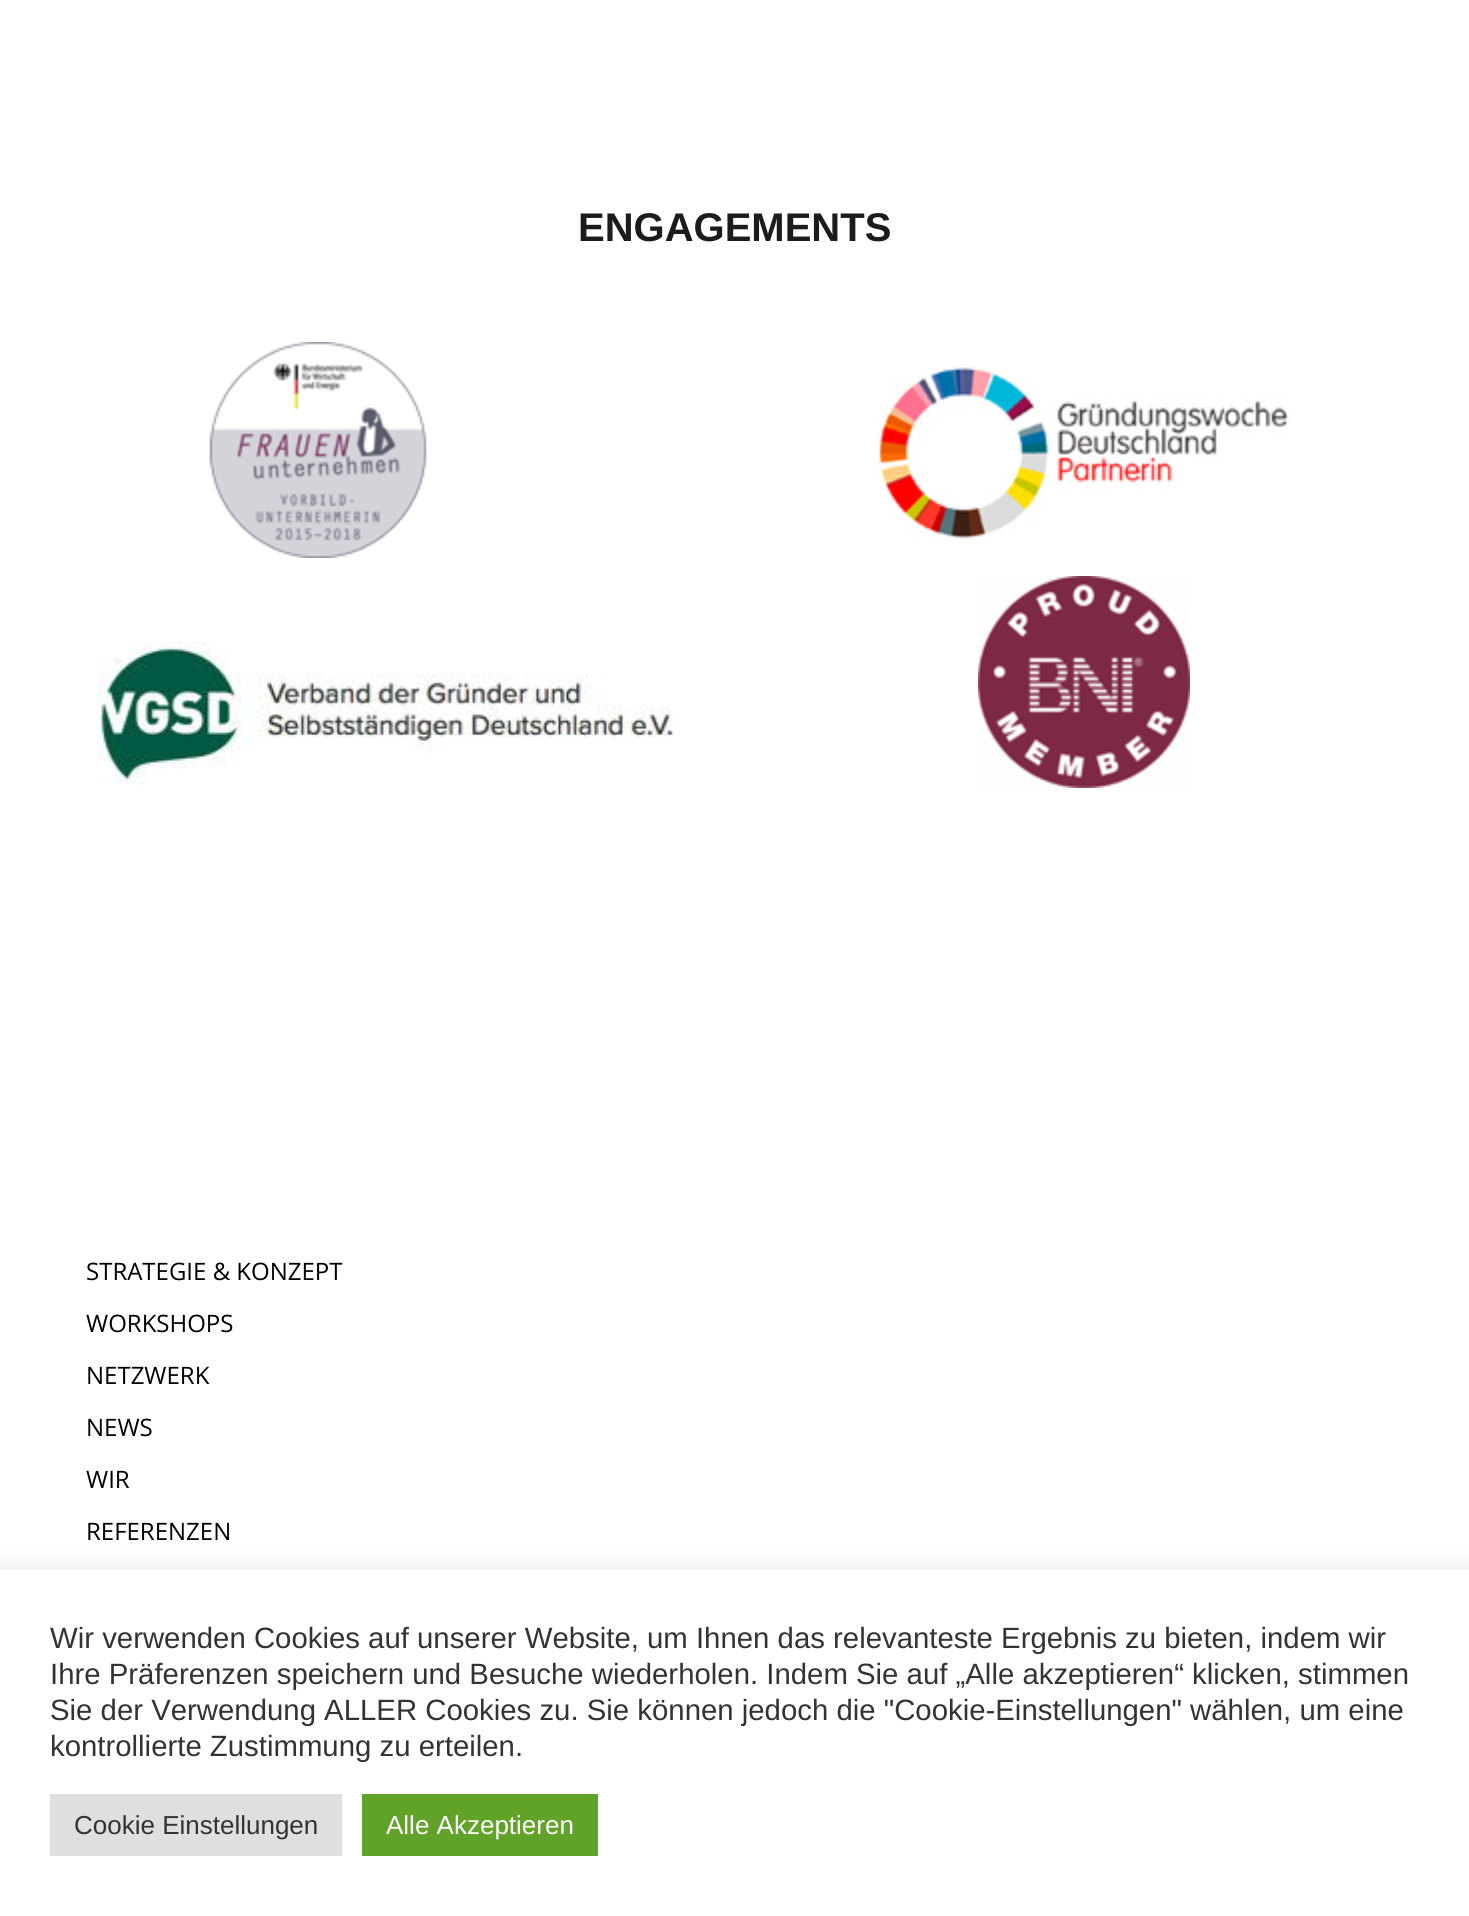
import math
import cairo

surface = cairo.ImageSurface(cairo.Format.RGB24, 1469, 1916)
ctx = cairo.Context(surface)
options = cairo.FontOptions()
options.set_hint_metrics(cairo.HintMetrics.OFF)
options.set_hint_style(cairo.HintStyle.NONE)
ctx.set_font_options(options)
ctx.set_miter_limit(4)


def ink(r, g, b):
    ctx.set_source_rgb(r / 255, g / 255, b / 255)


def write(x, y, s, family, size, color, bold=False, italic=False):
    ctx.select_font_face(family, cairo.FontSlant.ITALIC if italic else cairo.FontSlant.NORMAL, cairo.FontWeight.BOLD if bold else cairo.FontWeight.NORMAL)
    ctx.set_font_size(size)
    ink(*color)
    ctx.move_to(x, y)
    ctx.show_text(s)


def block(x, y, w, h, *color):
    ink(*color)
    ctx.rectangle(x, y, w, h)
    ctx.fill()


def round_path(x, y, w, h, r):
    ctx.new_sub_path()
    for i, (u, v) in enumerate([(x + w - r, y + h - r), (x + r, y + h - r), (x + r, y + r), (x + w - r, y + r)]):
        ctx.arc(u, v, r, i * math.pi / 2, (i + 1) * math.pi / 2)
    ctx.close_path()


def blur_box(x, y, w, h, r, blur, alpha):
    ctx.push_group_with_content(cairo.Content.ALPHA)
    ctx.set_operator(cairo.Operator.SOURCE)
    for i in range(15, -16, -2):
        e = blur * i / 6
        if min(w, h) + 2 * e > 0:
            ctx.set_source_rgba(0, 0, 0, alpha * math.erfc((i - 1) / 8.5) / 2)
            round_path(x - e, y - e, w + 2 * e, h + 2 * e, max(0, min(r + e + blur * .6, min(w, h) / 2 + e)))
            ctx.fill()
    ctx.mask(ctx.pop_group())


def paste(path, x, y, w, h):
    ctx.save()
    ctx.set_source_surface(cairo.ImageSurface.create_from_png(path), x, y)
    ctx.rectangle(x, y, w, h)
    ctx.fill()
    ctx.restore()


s1 = dict(family="Liberation Sans", size=40, color=(28, 28, 28), bold=True)
s2 = dict(family="Open Sans", size=24, color=(0, 0, 0))
s3 = dict(family="Liberation Sans", size=29.35, color=(51, 51, 51))
s4 = dict(family="Liberation Sans", size=26, color=(51, 51, 51))
s5 = dict(family="Liberation Sans", size=26, color=(255, 255, 255))

ink(255, 255, 255)
ctx.paint()
write(578, 241, "ENGAGEMENTS", **s1)
paste("pic1.png", 209, 342, 218, 216)
paste("pic2.png", 879, 367, 410, 172)
paste("pic3.png", 98, 641, 575, 144)
paste("pic4.png", 978, 576, 212, 212)
write(86, 1280, "STRATEGIE & KONZEPT", **s2)
write(86, 1332, "WORKSHOPS", **s2)
write(86, 1384, "NETZWERK", **s2)
write(86, 1436, "NEWS", **s2)
write(86, 1488, "WIR", **s2)
write(86, 1540, "REFERENZEN", **s2)
ink(172, 171, 171)
blur_box(0, 1568, 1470, 346, 0, 10, 0.3)
block(0, 1570, 1469, 346, 255, 255, 255)
write(50, 1648, "Wir verwenden Cookies auf unserer Website, um Ihnen das relevanteste Ergebnis zu bieten, indem wir", **s3)
write(50, 1684, "Ihre Präferenzen speichern und Besuche wiederholen. Indem Sie auf „Alle akzeptieren“ klicken, stimmen", **s3)
write(50, 1720, "Sie der Verwendung ALLER Cookies zu. Sie können jedoch die \"Cookie-Einstellungen\" wählen, um eine", **s3)
write(50, 1756, "kontrollierte Zustimmung zu erteilen.", **s3)
block(50, 1794, 292, 62, 222, 223, 224)
write(74, 1834, "Cookie Einstellungen", **s4)
block(362, 1794, 236, 62, 97, 162, 41)
write(386, 1834, "Alle Akzeptieren", **s5)
surface.write_to_png("screenshot.png")
